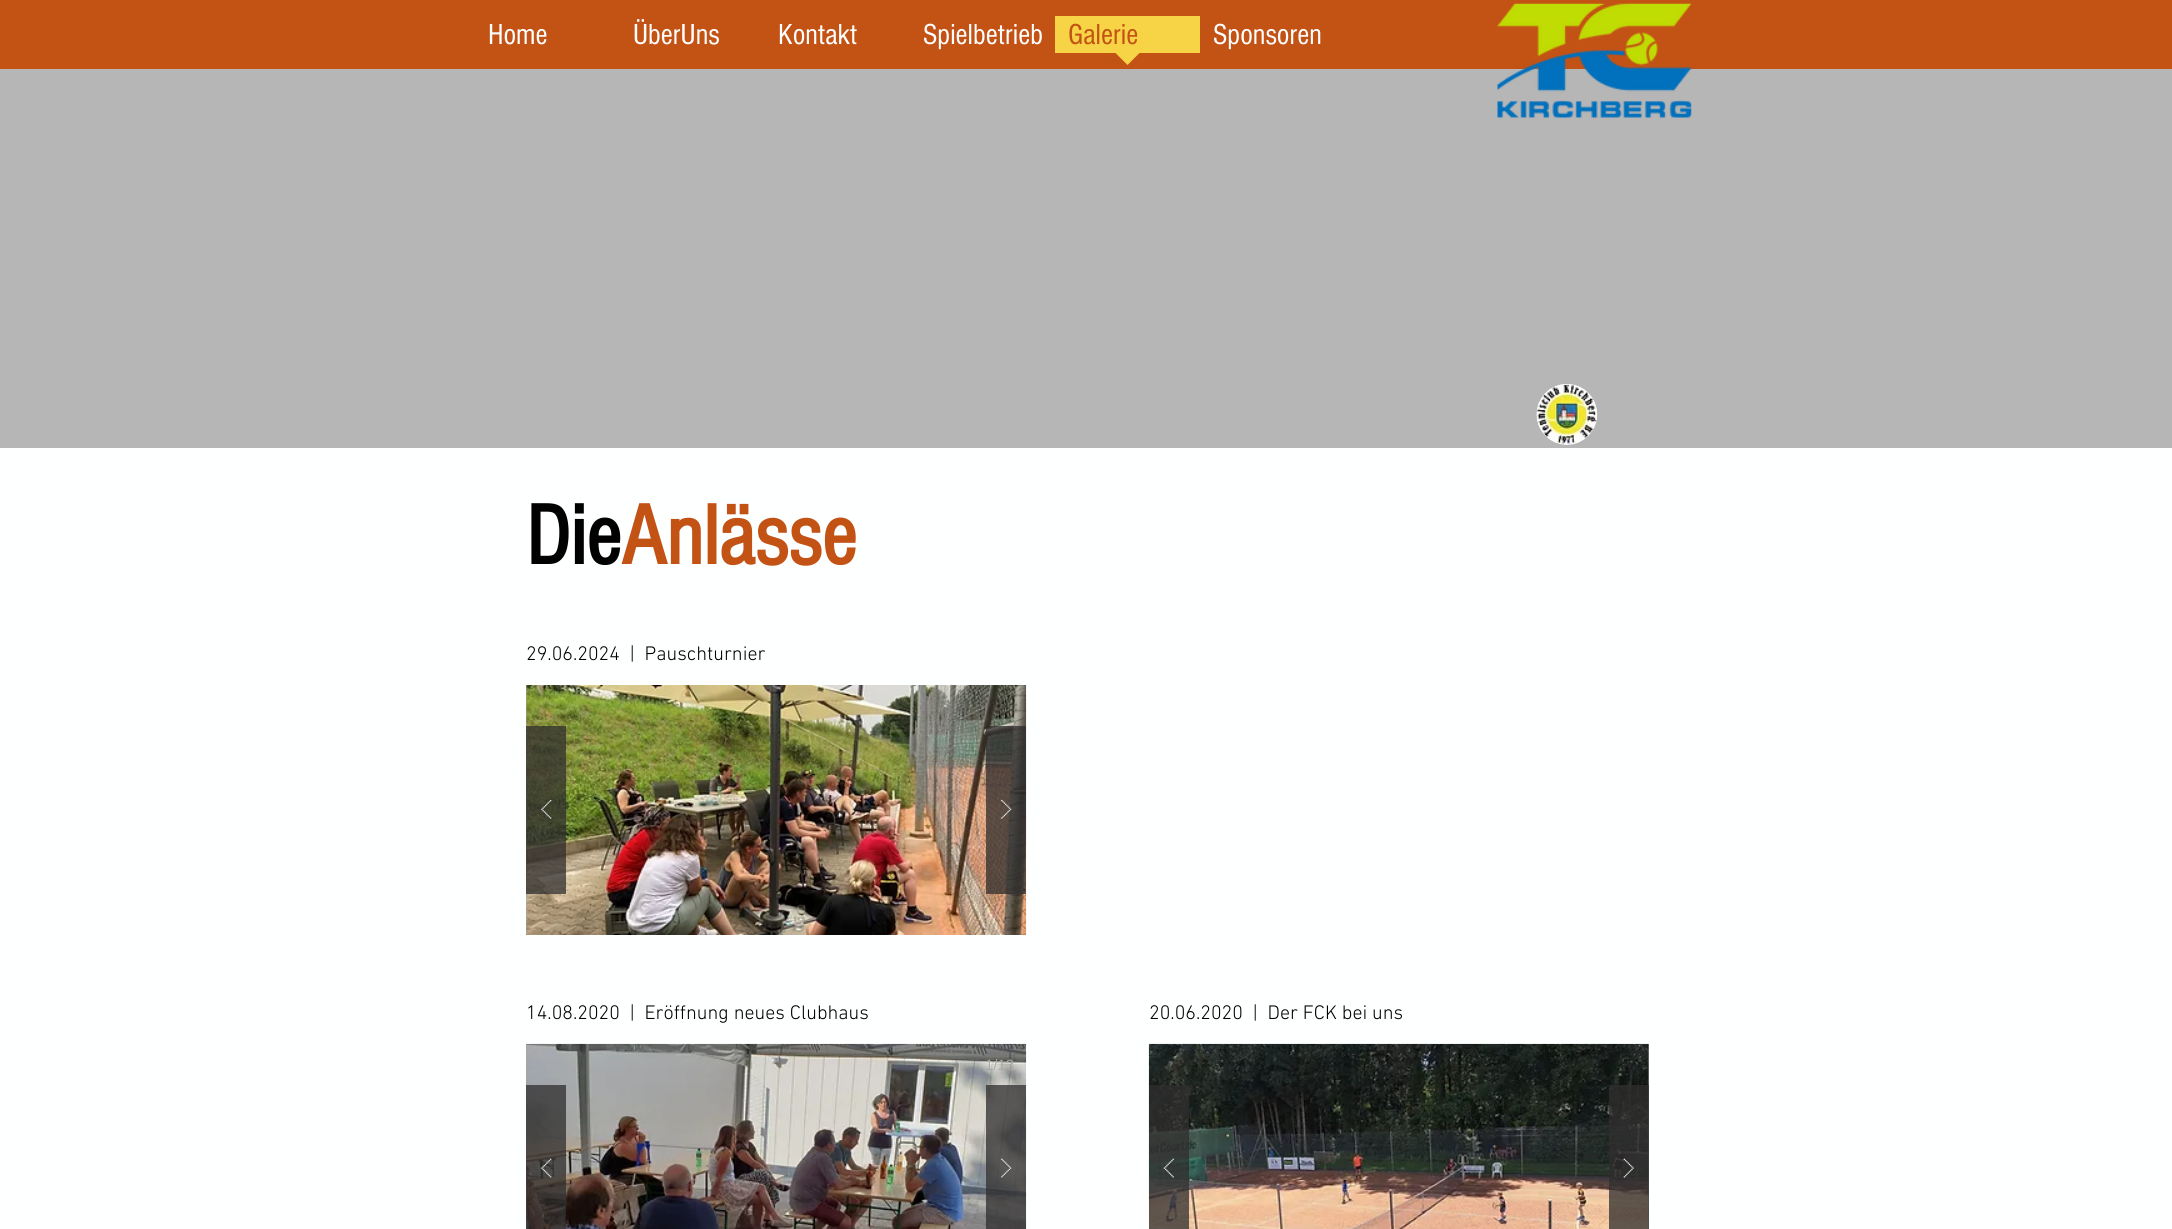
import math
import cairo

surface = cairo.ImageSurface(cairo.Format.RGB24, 2172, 1229)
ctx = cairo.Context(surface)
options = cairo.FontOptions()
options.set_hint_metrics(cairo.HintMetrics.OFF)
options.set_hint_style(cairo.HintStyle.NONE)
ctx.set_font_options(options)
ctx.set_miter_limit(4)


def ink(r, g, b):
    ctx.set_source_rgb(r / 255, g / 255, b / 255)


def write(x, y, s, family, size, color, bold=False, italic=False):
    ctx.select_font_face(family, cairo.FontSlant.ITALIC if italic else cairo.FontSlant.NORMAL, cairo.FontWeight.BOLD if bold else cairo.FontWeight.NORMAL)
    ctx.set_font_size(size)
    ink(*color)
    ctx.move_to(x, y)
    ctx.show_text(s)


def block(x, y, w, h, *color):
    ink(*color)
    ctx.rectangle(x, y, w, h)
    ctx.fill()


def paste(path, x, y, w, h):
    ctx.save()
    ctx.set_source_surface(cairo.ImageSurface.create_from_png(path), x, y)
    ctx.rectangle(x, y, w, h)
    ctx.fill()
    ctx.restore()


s1 = dict(family="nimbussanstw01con", size=30, color=(255, 255, 255))
s2 = dict(family="nimbussanstw01con", size=30, color=(195, 82, 21))
s3 = dict(family="nimbussanstw01con", size=87.5, color=(1, 1, 1), bold=True)
s4 = dict(family="nimbussanstw01con", size=87.5, color=(195, 82, 21), bold=True)
s5 = dict(family="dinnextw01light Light", size=20, color=(1, 1, 1))
s6 = dict(family="Liberation Sans", size=15, color=(168, 169, 164))

ink(183, 182, 182)
ctx.paint()
block(0, 0, 2172, 69, 195, 82, 21)
write(488, 44, "Home", **s1)
write(633, 44, "ÜberUns", **s1)
write(778, 44, "Kontakt", **s1)
write(923, 44, "Spielbetrieb", **s1)
block(1055, 16, 145, 37, 247, 212, 69)
write(1068, 44, "Galerie", **s2)
ink(247, 212, 69)
ctx.new_path()
ctx.move_to(1115, 52.5)
ctx.line_to(1140, 52.5)
ctx.line_to(1127.5, 65)
ctx.close_path()
ctx.fill()
write(1213, 44, "Sponsoren", **s1)
paste("pic1.png", 1497, 3, 195, 115)
block(0, 448, 2172, 781, 254, 255, 255)
paste("pic2.png", 1536, 384, 62, 61)
write(526, 564, "Die", **s3)
write(621, 564, "Anlässe", **s4)
write(526, 660, "29.06.2024  |  Pauschturnier", **s5)
block(526, 685, 1, 250, 160, 160, 159)
paste("pic3.png", 526, 685, 501, 250)
ctx.set_source_rgba(0.184, 0.18, 0.18, 0.75)
ctx.rectangle(526, 726, 40, 168)
ctx.fill()
paste("pic4.png", 541, 800, 11, 20)
ctx.rectangle(986, 726, 40, 168)
ctx.fill()
paste("pic5.png", 1001, 800, 11, 20)
write(526, 1019, "14.08.2020  |  Eröffnung neues Clubhaus", **s5)
write(1149, 1019, "20.06.2020  |  Der FCK bei uns", **s5)
block(526, 1044, 1, 185, 160, 160, 159)
paste("pic6.png", 526, 1043, 501, 186)
write(985, 1070, "1/13", **s6)
ctx.set_source_rgba(0.184, 0.18, 0.18, 0.75)
ctx.rectangle(526, 1085, 40, 144)
ctx.fill()
paste("pic7.png", 541, 1158, 11, 21)
ctx.rectangle(986, 1085, 40, 144)
ctx.fill()
paste("pic8.png", 1001, 1158, 11, 21)
block(1648, 1044, 1, 185, 160, 160, 159)
paste("pic9.png", 1148, 1043, 501, 186)
ctx.set_source_rgba(0.184, 0.18, 0.18, 0.75)
ctx.rectangle(1149, 1085, 40, 144)
ctx.fill()
paste("pic10.png", 1163, 1158, 11, 21)
ctx.rectangle(1609, 1085, 40, 144)
ctx.fill()
paste("pic11.png", 1623, 1158, 11, 21)
surface.write_to_png("screenshot.png")
